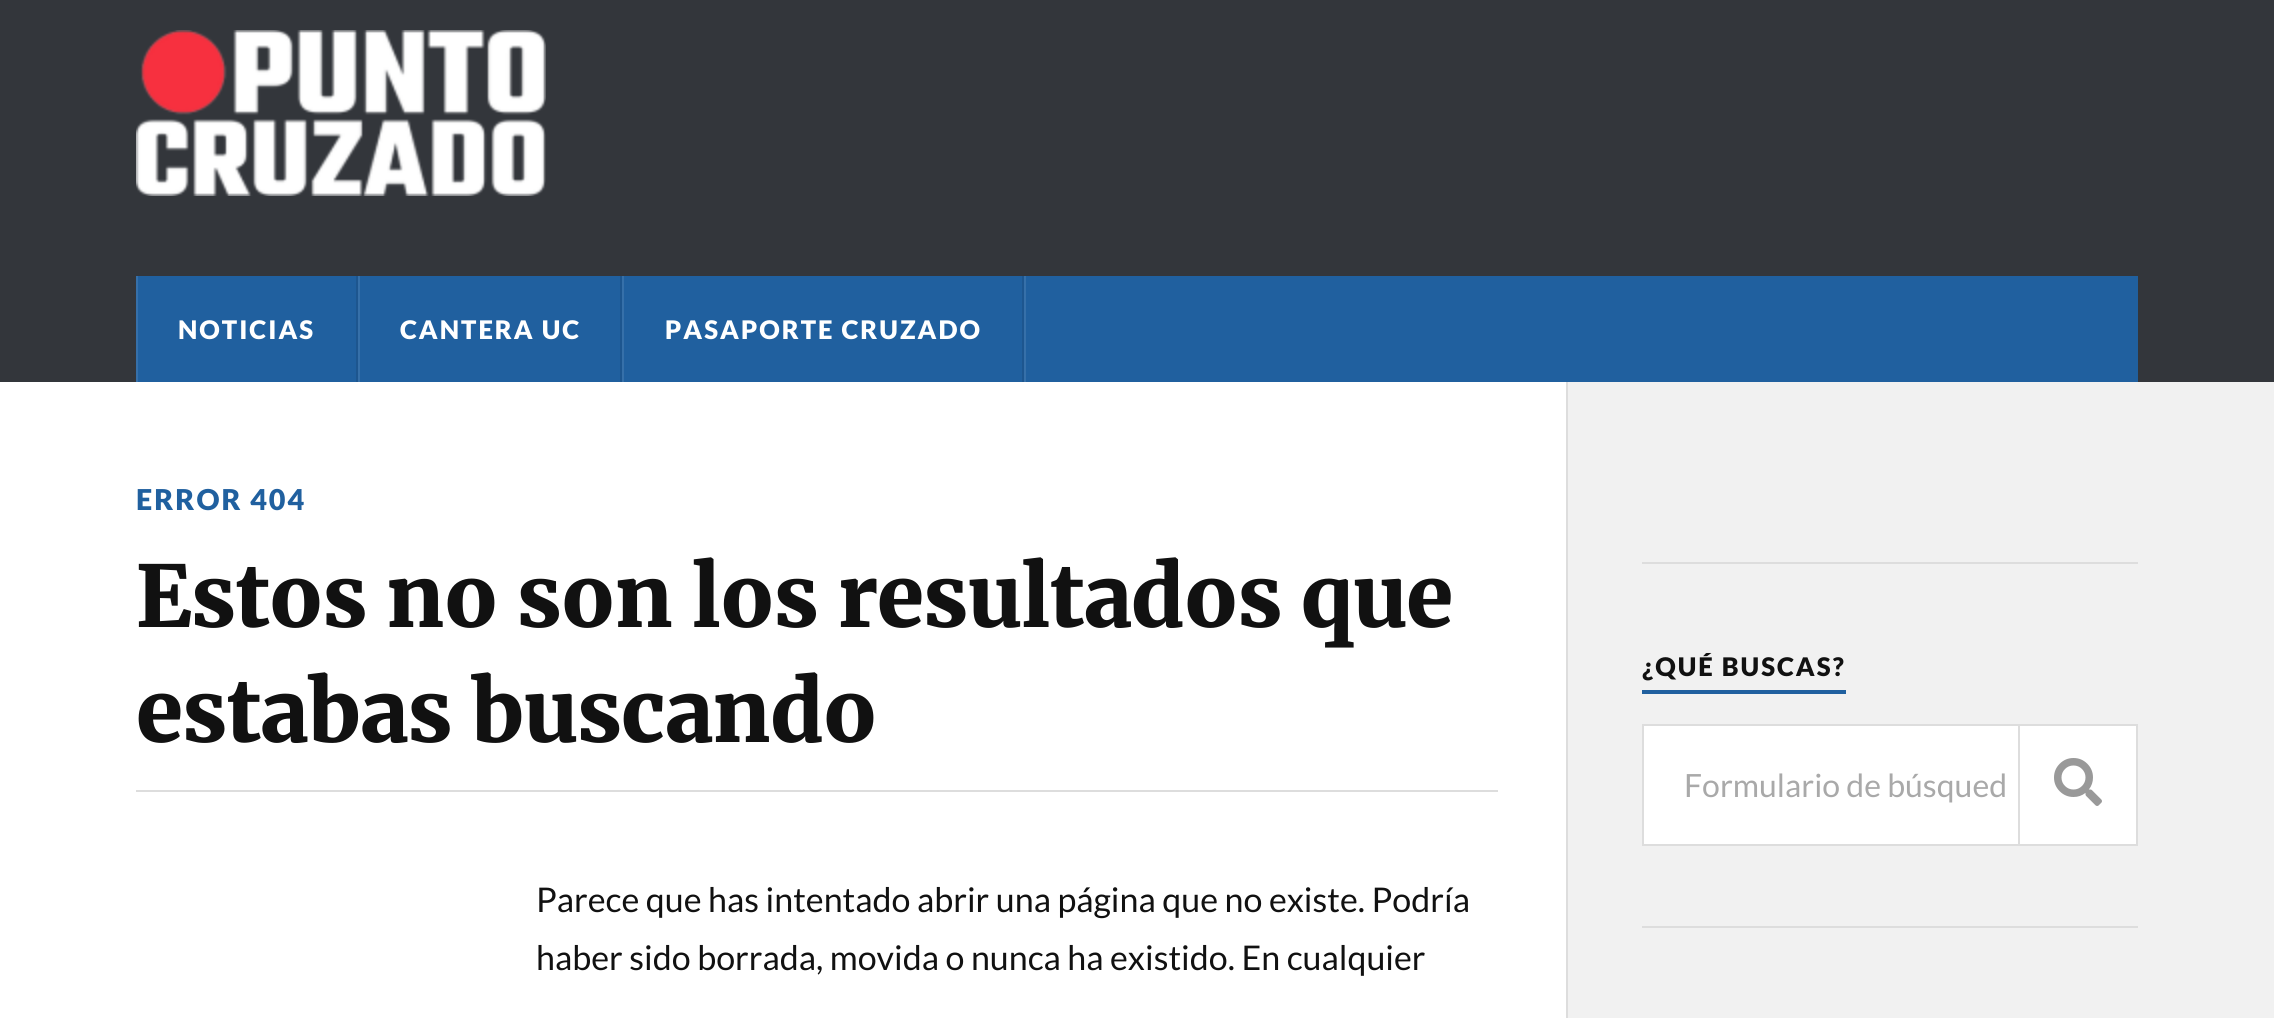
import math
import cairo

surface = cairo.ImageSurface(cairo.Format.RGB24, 2274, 1018)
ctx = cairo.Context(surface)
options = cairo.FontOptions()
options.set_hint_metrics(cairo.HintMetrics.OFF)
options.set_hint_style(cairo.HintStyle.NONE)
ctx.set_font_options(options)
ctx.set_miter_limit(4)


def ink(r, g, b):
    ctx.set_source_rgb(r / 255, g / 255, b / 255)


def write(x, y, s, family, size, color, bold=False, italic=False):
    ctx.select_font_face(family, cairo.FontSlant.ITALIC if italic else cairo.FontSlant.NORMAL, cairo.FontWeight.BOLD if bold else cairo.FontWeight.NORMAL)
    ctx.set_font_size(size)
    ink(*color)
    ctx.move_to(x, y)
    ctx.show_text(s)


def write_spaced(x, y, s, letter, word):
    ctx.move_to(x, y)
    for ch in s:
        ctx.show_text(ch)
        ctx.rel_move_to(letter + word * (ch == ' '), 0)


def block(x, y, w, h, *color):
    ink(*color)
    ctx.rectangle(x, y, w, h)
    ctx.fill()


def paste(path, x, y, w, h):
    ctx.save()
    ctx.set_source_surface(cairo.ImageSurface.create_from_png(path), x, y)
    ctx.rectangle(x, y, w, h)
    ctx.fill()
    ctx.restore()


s1 = dict(family="Lato", size=34, color=(17, 17, 17))
s2 = dict(family="Lato", size=32, color=(169, 169, 169))

ink(241, 241, 241)
ctx.paint()
block(0, 0, 2274, 382, 51, 54, 59)
paste("pic1.png", 136, 30, 410, 166)
block(138, 276, 2000, 106, 32, 96, 159)
block(356, 276, 2, 106, 29, 86, 143)
block(136, 276, 2, 106, 54, 112, 169)
ctx.select_font_face("Lato Black")
ctx.set_font_size(25.6)
ink(255, 255, 255)
write_spaced(178, 339, "NOTICIAS", 2, 0)
block(620, 276, 2, 106, 29, 86, 143)
block(358, 276, 2, 106, 54, 112, 169)
ink(255, 255, 255)
write_spaced(400, 339, "CANTERA UC", 2, 0)
block(1022, 276, 2, 106, 29, 86, 143)
block(622, 276, 2, 106, 54, 112, 169)
ink(255, 255, 255)
write_spaced(665, 339, "PASAPORTE CRUZADO", 2, 0)
block(1024, 276, 2, 106, 54, 112, 169)
block(0, 382, 1566, 636, 255, 255, 255)
ctx.set_font_size(28.75)
ink(32, 96, 159)
write_spaced(136, 510, "ERROR 404", 2, 0)
block(136, 790, 1362, 2, 221, 221, 221)
ctx.select_font_face("Merriweather Black")
ctx.set_font_size(85)
ink(17, 17, 17)
write_spaced(136, 627, "Estos no son los resultados que", -0.85, 0)
write_spaced(136, 742, "estabas buscando", -0.85, 0)
write(536, 912, "Parece que has intentado abrir una página que no existe. Podría", **s1)
write(536, 970, "haber sido borrada, movida o nunca ha existido. En cualquier", **s1)
block(1566, 382, 2, 636, 221, 221, 221)
block(1642, 562, 496, 2, 221, 221, 221)
block(1642, 690, 204, 4, 32, 96, 159)
ctx.select_font_face("Lato Black")
ctx.set_font_size(25.6)
ink(17, 17, 17)
write_spaced(1642, 676, "¿QUÉ BUSCAS?", 2, 0)
ink(255, 255, 255)
ctx.rectangle(1643, 725, 494, 120)
ctx.fill_preserve()
ink(221, 221, 221)
ctx.stroke()
write(1684, 797, "Formulario de búsqued", **s2)
block(2018, 726, 2, 118, 221, 221, 221)
paste("pic2.png", 2054, 758, 48, 48)
block(1642, 926, 496, 2, 221, 221, 221)
surface.write_to_png("screenshot.png")
